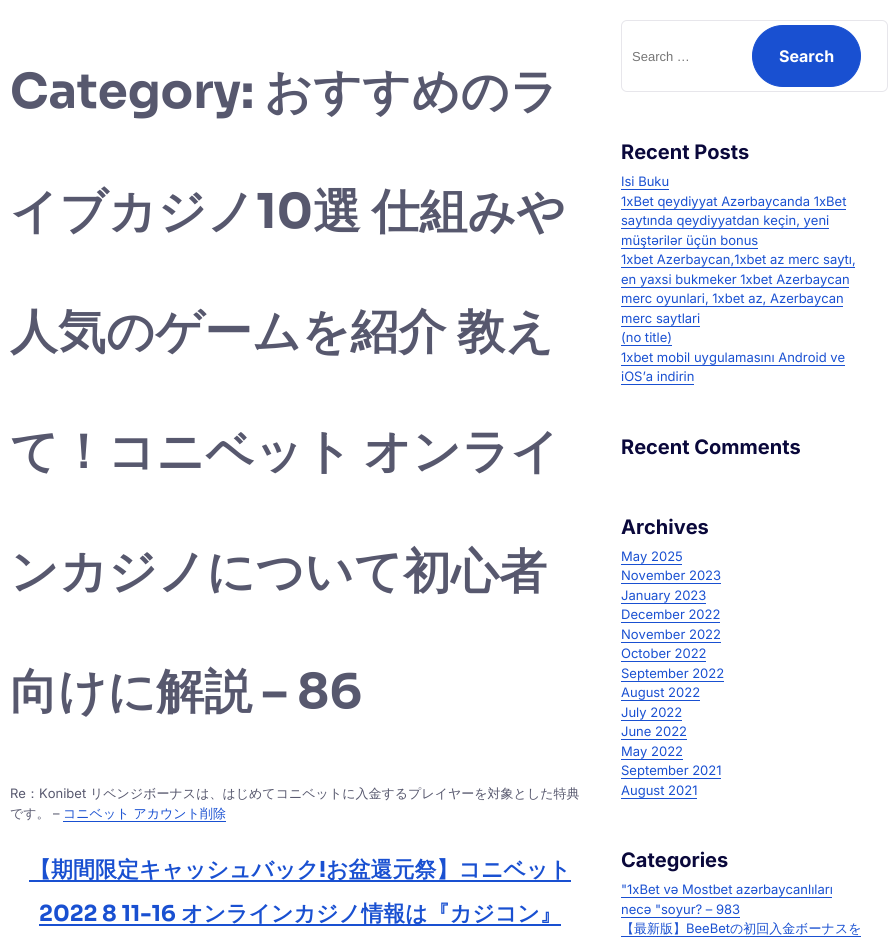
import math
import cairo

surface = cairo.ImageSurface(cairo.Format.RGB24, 896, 940)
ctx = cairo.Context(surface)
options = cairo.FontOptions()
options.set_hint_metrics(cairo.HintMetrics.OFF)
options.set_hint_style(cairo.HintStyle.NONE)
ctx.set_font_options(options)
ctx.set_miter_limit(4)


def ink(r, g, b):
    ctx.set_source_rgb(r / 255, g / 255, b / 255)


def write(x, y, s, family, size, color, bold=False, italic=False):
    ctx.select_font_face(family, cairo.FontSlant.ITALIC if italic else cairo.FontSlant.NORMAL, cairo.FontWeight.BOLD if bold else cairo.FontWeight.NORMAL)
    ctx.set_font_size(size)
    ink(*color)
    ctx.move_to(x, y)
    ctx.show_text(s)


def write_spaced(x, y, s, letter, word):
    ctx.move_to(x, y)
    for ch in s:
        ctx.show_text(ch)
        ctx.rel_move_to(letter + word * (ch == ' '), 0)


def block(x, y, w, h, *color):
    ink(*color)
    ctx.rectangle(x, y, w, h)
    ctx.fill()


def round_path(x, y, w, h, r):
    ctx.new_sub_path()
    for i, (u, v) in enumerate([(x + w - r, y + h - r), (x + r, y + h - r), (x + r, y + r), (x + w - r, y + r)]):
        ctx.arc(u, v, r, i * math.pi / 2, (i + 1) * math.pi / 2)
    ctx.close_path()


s1 = dict(family="Sora", size=48, color=(87, 88, 110), bold=True)
s2 = dict(family="WenQuanYi Zen Hei", size=48, color=(87, 88, 110), bold=True)
s3 = dict(family="Inter", size=13, color=(87, 88, 110))
s4 = dict(family="WenQuanYi Zen Hei Medium", size=13, color=(87, 88, 110))
s5 = dict(family="WenQuanYi Zen Hei Medium", size=13, color=(25, 80, 209))
s6 = dict(family="WenQuanYi Zen Hei", size=22, color=(25, 80, 209), bold=True)
s7 = dict(family="Sora", size=22, color=(25, 80, 209), bold=True)
s8 = dict(family="Liberation Sans", size=13, color=(117, 117, 117))
s9 = dict(family="Inter", size=16, color=(255, 255, 255), bold=True)
s10 = dict(family="Inter", size=20, color=(10, 8, 59), bold=True)
s11 = dict(family="Inter", size=13, color=(25, 80, 209))

ink(255, 255, 255)
ctx.paint()
write(10, 108, "Category:", **s1)
write(264, 108, "おすすめのラ", **s2)
write(10, 228, "イブカジノ", **s2)
write(256, 228, "10", **s1)
ctx.select_font_face("WenQuanYi Zen Hei", cairo.FontSlant.NORMAL, cairo.FontWeight.BOLD)
write_spaced(313, 228, "選 仕組みや", 0, -4)
write_spaced(10, 348, "人気のゲームを紹介 教え", 0, -4)
write_spaced(10, 468, "て！コニベット オンライ", 0, -4)
write(10, 588, "ンカジノについて初心者", **s2)
write(10, 708, "向けに解説", **s2)
write(262, 708, "– 86", **s1)
write(10, 798, "Re", **s3)
write(26, 798, "：", **s4)
write(39, 798, "Konibet", **s3)
write(90, 798, "リベンジボーナスは、はじめてコニベットに入金するプレイヤーを対象とした特典", **s4)
write(10, 818, "です。", **s4)
write(53, 818, "–", **s3)
write(63, 818, "コニベット アカウント削除", **s5)
block(63, 821, 163, 1, 25, 80, 209)
block(29, 880, 542, 2, 25, 80, 209)
write(29, 877, "【期間限定キャッシュバック", **s6)
write(319, 877, "!", **s7)
write(326, 877, "お盆還元祭】コニベット", **s6)
write(39, 921, "2022 8 11-16", **s7)
block(39, 924, 522, 2, 25, 80, 209)
write(181, 921, "オンラインカジノ情報は『カジコン』", **s6)
round_path(621.5, 20.5, 266, 71, 5.5)
ink(231, 230, 235)
ctx.set_line_width(1)
ctx.stroke()
write(632, 61, "Search …", **s8)
ink(25, 80, 209)
round_path(752.5, 25.5, 108, 61, 30.5)
ctx.fill_preserve()
ctx.stroke()
write(779, 62, "Search", **s9)
write(621, 159, "Recent Posts", **s10)
write(621, 186, "Isi Buku", **s11)
block(621, 189, 48, 1, 25, 80, 209)
write(621, 206, "1xBet qeydiyyat Azərbaycanda 1xBet", **s11)
block(621, 209, 225, 1, 25, 80, 209)
write(621, 225, "saytında qeydiyyatdan keçin, yeni", **s11)
block(621, 228, 208, 1, 25, 80, 209)
write(621, 245, "müştərilər üçün bonus", **s11)
block(621, 248, 137, 1, 25, 80, 209)
write(621, 264, "1xbet Azerbaycan,1xbet az merc saytı,", **s11)
block(621, 267, 234, 1, 25, 80, 209)
write(621, 284, "en yaxsi bukmeker 1xbet Azerbaycan", **s11)
block(621, 287, 228, 1, 25, 80, 209)
write(621, 303, "merc oyunlari, 1xbet az, Azerbaycan", **s11)
block(621, 306, 222, 1, 25, 80, 209)
write(621, 323, "merc saytlari", **s11)
block(621, 326, 79, 1, 25, 80, 209)
write(621, 342, "(no title)", **s11)
block(621, 345, 51, 1, 25, 80, 209)
write(621, 362, "1xbet mobil uygulamasını Android ve", **s11)
block(621, 365, 224, 1, 25, 80, 209)
write(621, 381, "iOS’a indirin", **s11)
block(621, 384, 73, 1, 25, 80, 209)
write(621, 454, "Recent Comments", **s10)
write(621, 534, "Archives", **s10)
write(621, 561, "May 2025", **s11)
block(621, 564, 61, 1, 25, 80, 209)
write(621, 580, "November 2023", **s11)
block(621, 583, 100, 1, 25, 80, 209)
write(621, 600, "January 2023", **s11)
block(621, 603, 85, 1, 25, 80, 209)
write(621, 619, "December 2022", **s11)
block(621, 622, 99, 1, 25, 80, 209)
write(621, 639, "November 2022", **s11)
block(621, 642, 100, 1, 25, 80, 209)
write(621, 658, "October 2022", **s11)
block(621, 661, 85, 1, 25, 80, 209)
write(621, 678, "September 2022", **s11)
block(621, 681, 103, 1, 25, 80, 209)
write(621, 697, "August 2022", **s11)
block(621, 700, 79, 1, 25, 80, 209)
write(621, 717, "July 2022", **s11)
block(621, 720, 61, 1, 25, 80, 209)
write(621, 736, "June 2022", **s11)
block(621, 739, 66, 1, 25, 80, 209)
write(621, 756, "May 2022", **s11)
block(621, 759, 62, 1, 25, 80, 209)
write(621, 775, "September 2021", **s11)
block(621, 778, 100, 1, 25, 80, 209)
write(621, 795, "August 2021", **s11)
block(621, 798, 76, 1, 25, 80, 209)
write(621, 867, "Categories", **s10)
write(621, 894, "\"1xBet və Mostbet azərbaycanlıları", **s11)
block(621, 897, 211, 1, 25, 80, 209)
write(621, 914, "necə \"soyur? – 983", **s11)
block(621, 917, 119, 1, 25, 80, 209)
write(621, 933, "【最新版】", **s5)
write(686, 933, "BeeBet", **s11)
write(730, 933, "の初回入金ボーナスを", **s5)
block(621, 936, 240, 1, 25, 80, 209)
surface.write_to_png("screenshot.png")
